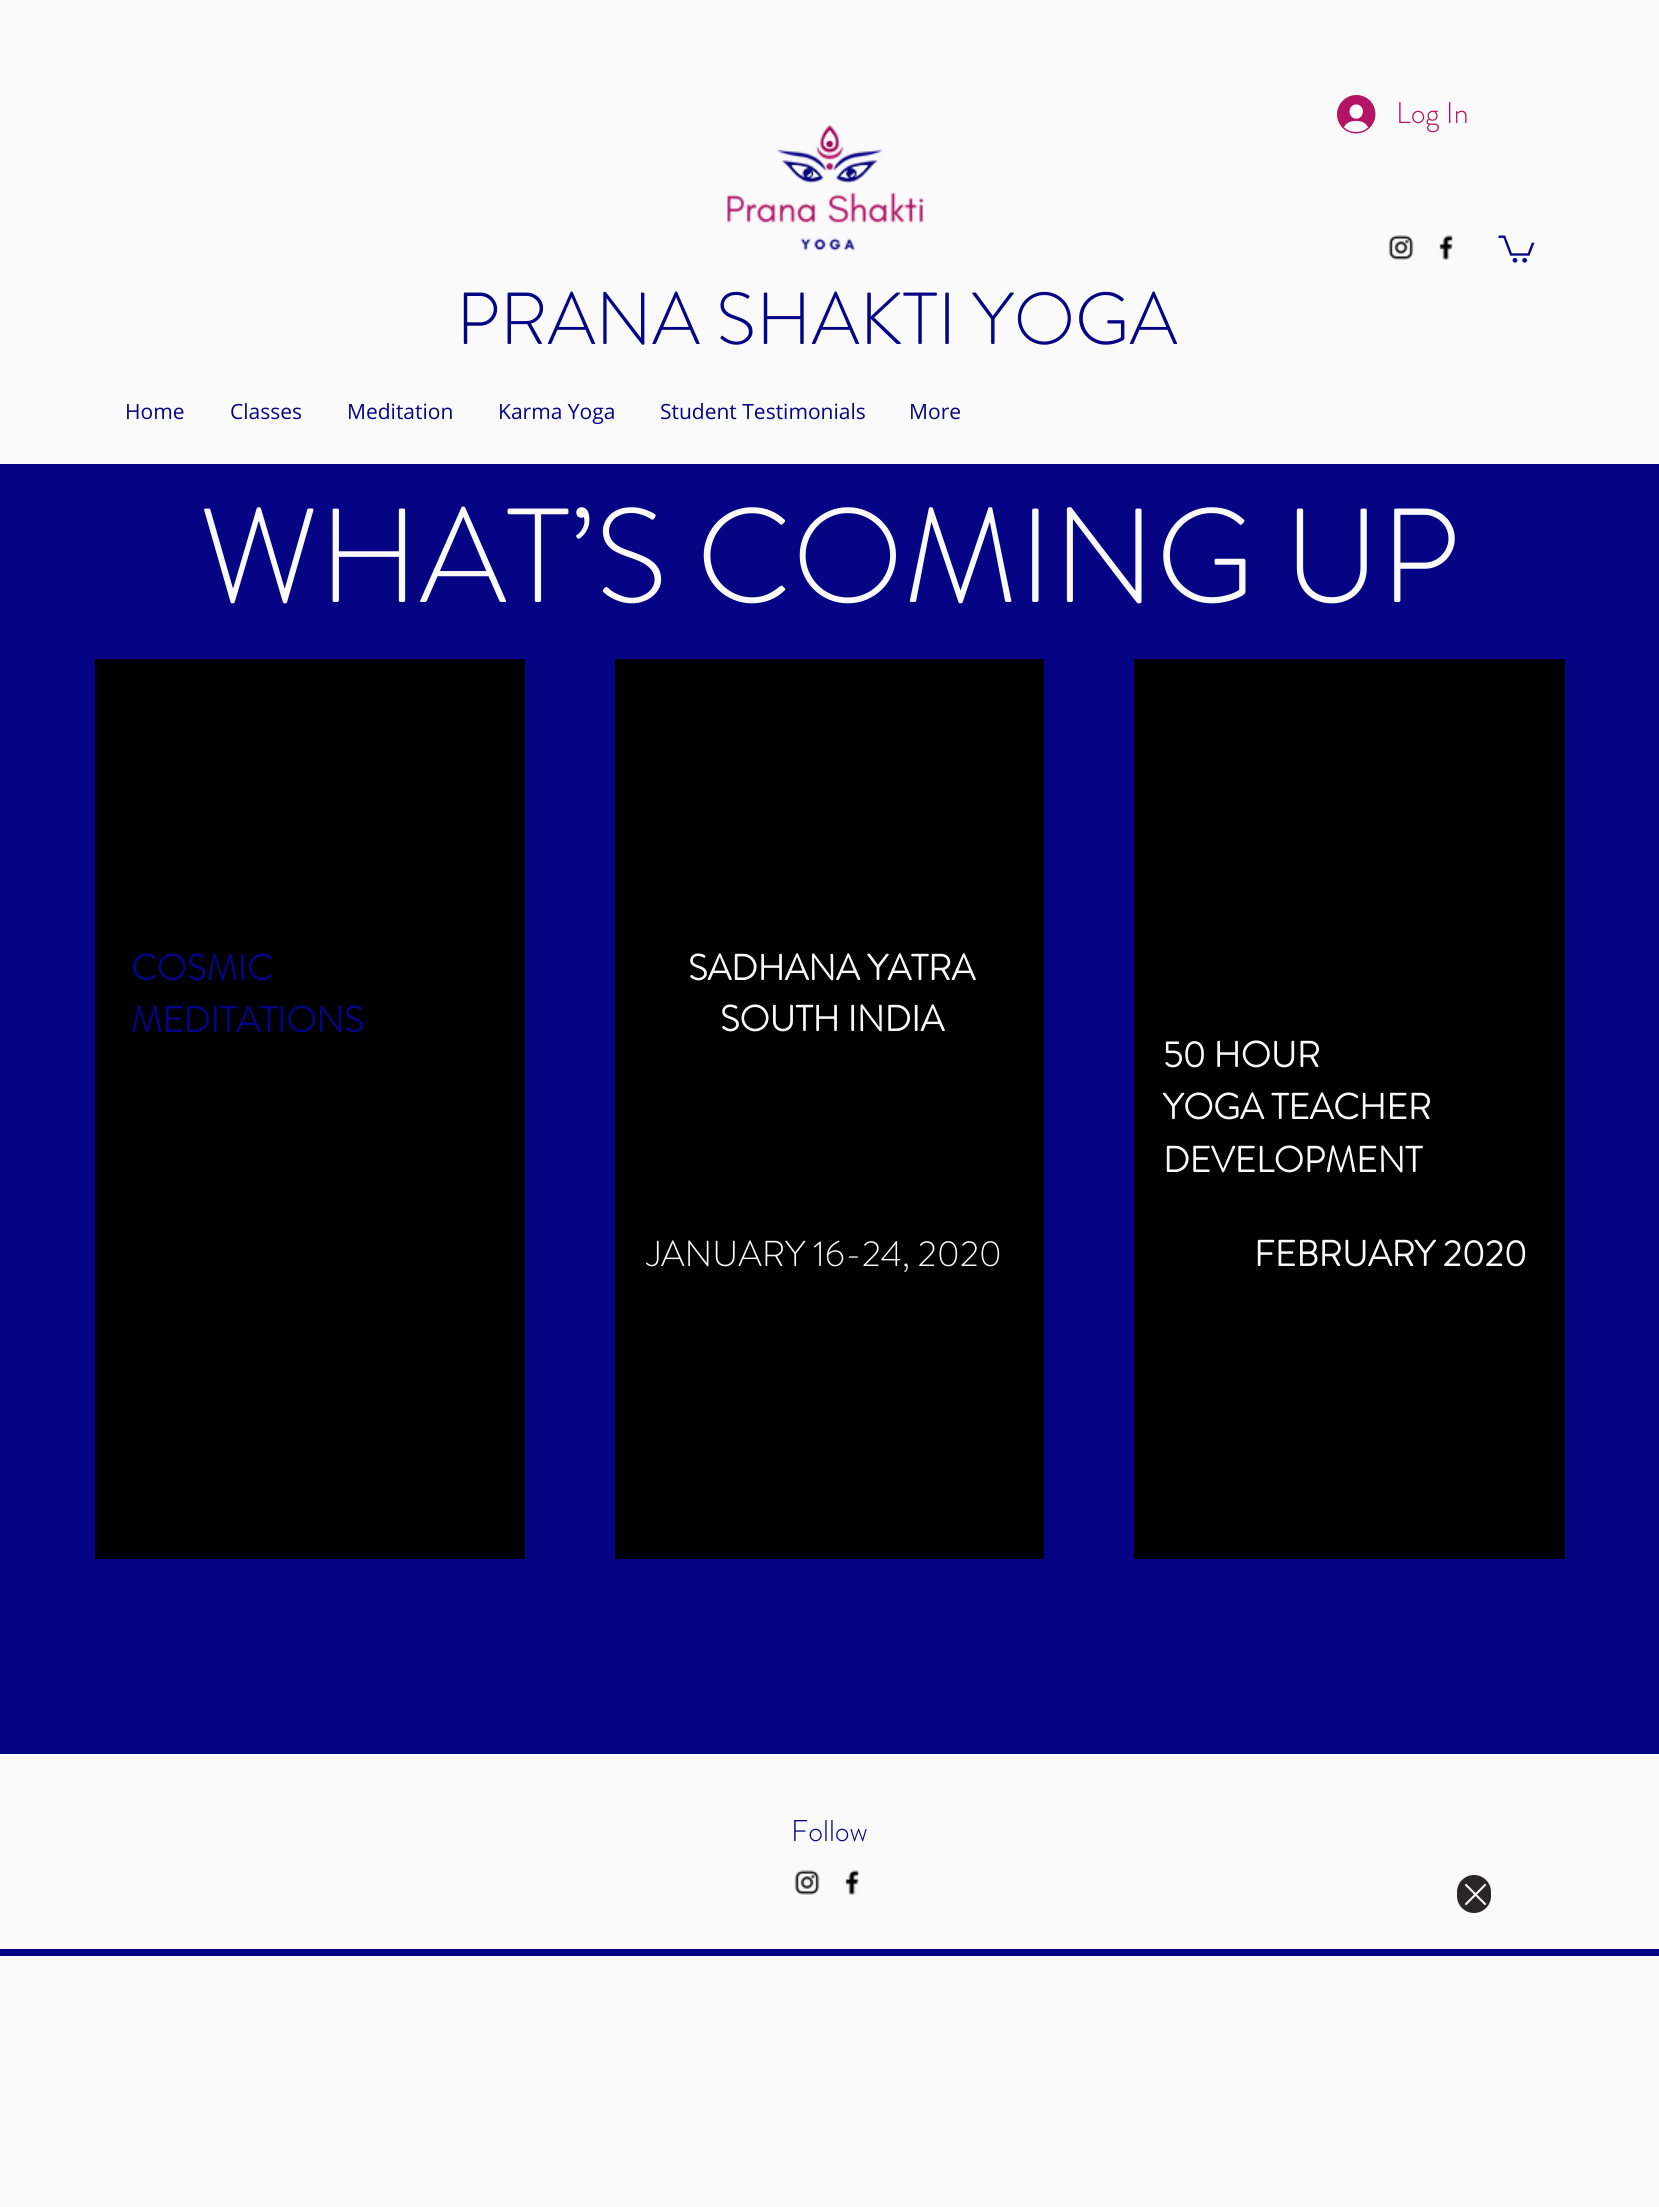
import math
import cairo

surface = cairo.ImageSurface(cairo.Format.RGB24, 1659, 2207)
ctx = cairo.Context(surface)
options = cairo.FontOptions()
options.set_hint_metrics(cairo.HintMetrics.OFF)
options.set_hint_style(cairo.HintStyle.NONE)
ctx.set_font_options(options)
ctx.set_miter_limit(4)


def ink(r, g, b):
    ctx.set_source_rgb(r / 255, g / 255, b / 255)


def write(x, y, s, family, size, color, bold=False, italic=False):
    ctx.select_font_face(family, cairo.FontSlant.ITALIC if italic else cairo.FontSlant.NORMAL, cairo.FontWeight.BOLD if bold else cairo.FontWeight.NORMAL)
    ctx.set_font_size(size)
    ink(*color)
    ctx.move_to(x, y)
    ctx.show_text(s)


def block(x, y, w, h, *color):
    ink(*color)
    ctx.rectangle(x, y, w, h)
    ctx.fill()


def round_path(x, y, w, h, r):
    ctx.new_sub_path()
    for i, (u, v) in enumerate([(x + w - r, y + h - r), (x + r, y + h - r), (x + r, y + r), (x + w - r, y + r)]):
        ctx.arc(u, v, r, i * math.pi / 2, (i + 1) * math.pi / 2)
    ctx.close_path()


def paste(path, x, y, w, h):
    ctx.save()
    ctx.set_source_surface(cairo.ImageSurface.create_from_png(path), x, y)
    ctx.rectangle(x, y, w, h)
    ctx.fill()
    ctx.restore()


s1 = dict(family="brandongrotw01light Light", size=30, color=(180, 20, 100))
s2 = dict(family="brandongrotw01light Light", size=73.5, color=(4, 4, 132))
s3 = dict(family="Open Sans", size=21, color=(4, 4, 132))
s4 = dict(family="brandongrotw01light Light", size=133.5, color=(251, 250, 251))
s5 = dict(family="brandongrotw01light", size=36, color=(4, 4, 132), bold=True)
s6 = dict(family="brandongrotw01light", size=36, color=(251, 250, 251), bold=True)
s7 = dict(family="brandongrotw01light Light", size=36, color=(251, 250, 251))
s8 = dict(family="brandongrotw01light Light", size=30, color=(4, 4, 132))

ink(251, 250, 251)
ctx.paint()
paste("pic1.png", 1337, 95, 39, 39)
write(1396, 123, "Log In", **s1)
paste("pic2.png", 726, 124, 199, 127)
paste("pic3.png", 1388, 235, 26, 25)
paste("pic4.png", 1439, 235, 14, 25)
paste("pic5.png", 1498, 235, 37, 28)
write(456, 344, "PRANA SHAKTI YOGA", **s2)
write(125, 419, "Home", **s3)
write(230, 419, "Classes", **s3)
write(347, 419, "Meditation", **s3)
write(498, 419, "Karma Yoga", **s3)
write(660, 419, "Student Testimonials", **s3)
write(909, 419, "More", **s3)
block(0, 464, 1659, 1290, 4, 4, 132)
write(199, 602, "WHAT’S COMING UP", **s4)
block(95, 659, 430, 900, 0, 0, 0)
write(131, 980, "COSMIC", **s5)
write(131, 1032, "MEDITATIONS", **s5)
block(615, 659, 429, 900, 0, 0, 0)
write(688, 980, "SADHANA YATRA", **s6)
write(720, 1031, "SOUTH INDIA", **s6)
write(647, 1266, "JANUARY 16-24, 2020", **s7)
block(1134, 659, 431, 900, 0, 0, 0)
write(1163, 1067, "50 HOUR", **s6)
write(1163, 1119, "YOGA TEACHER", **s6)
write(1163, 1172, "DEVELOPMENT", **s6)
write(1254, 1266, "FEBRUARY 2020", **s6)
write(791, 1841, "Follow", **s8)
paste("pic3.png", 794, 1870, 26, 25)
paste("pic4.png", 845, 1870, 14, 25)
ink(40, 38, 38)
round_path(1457, 1875, 34, 38, 17)
ctx.fill()
paste("pic6.png", 1464, 1883, 23, 23)
block(0, 1949, 1659, 7, 4, 4, 132)
surface.write_to_png("screenshot.png")
